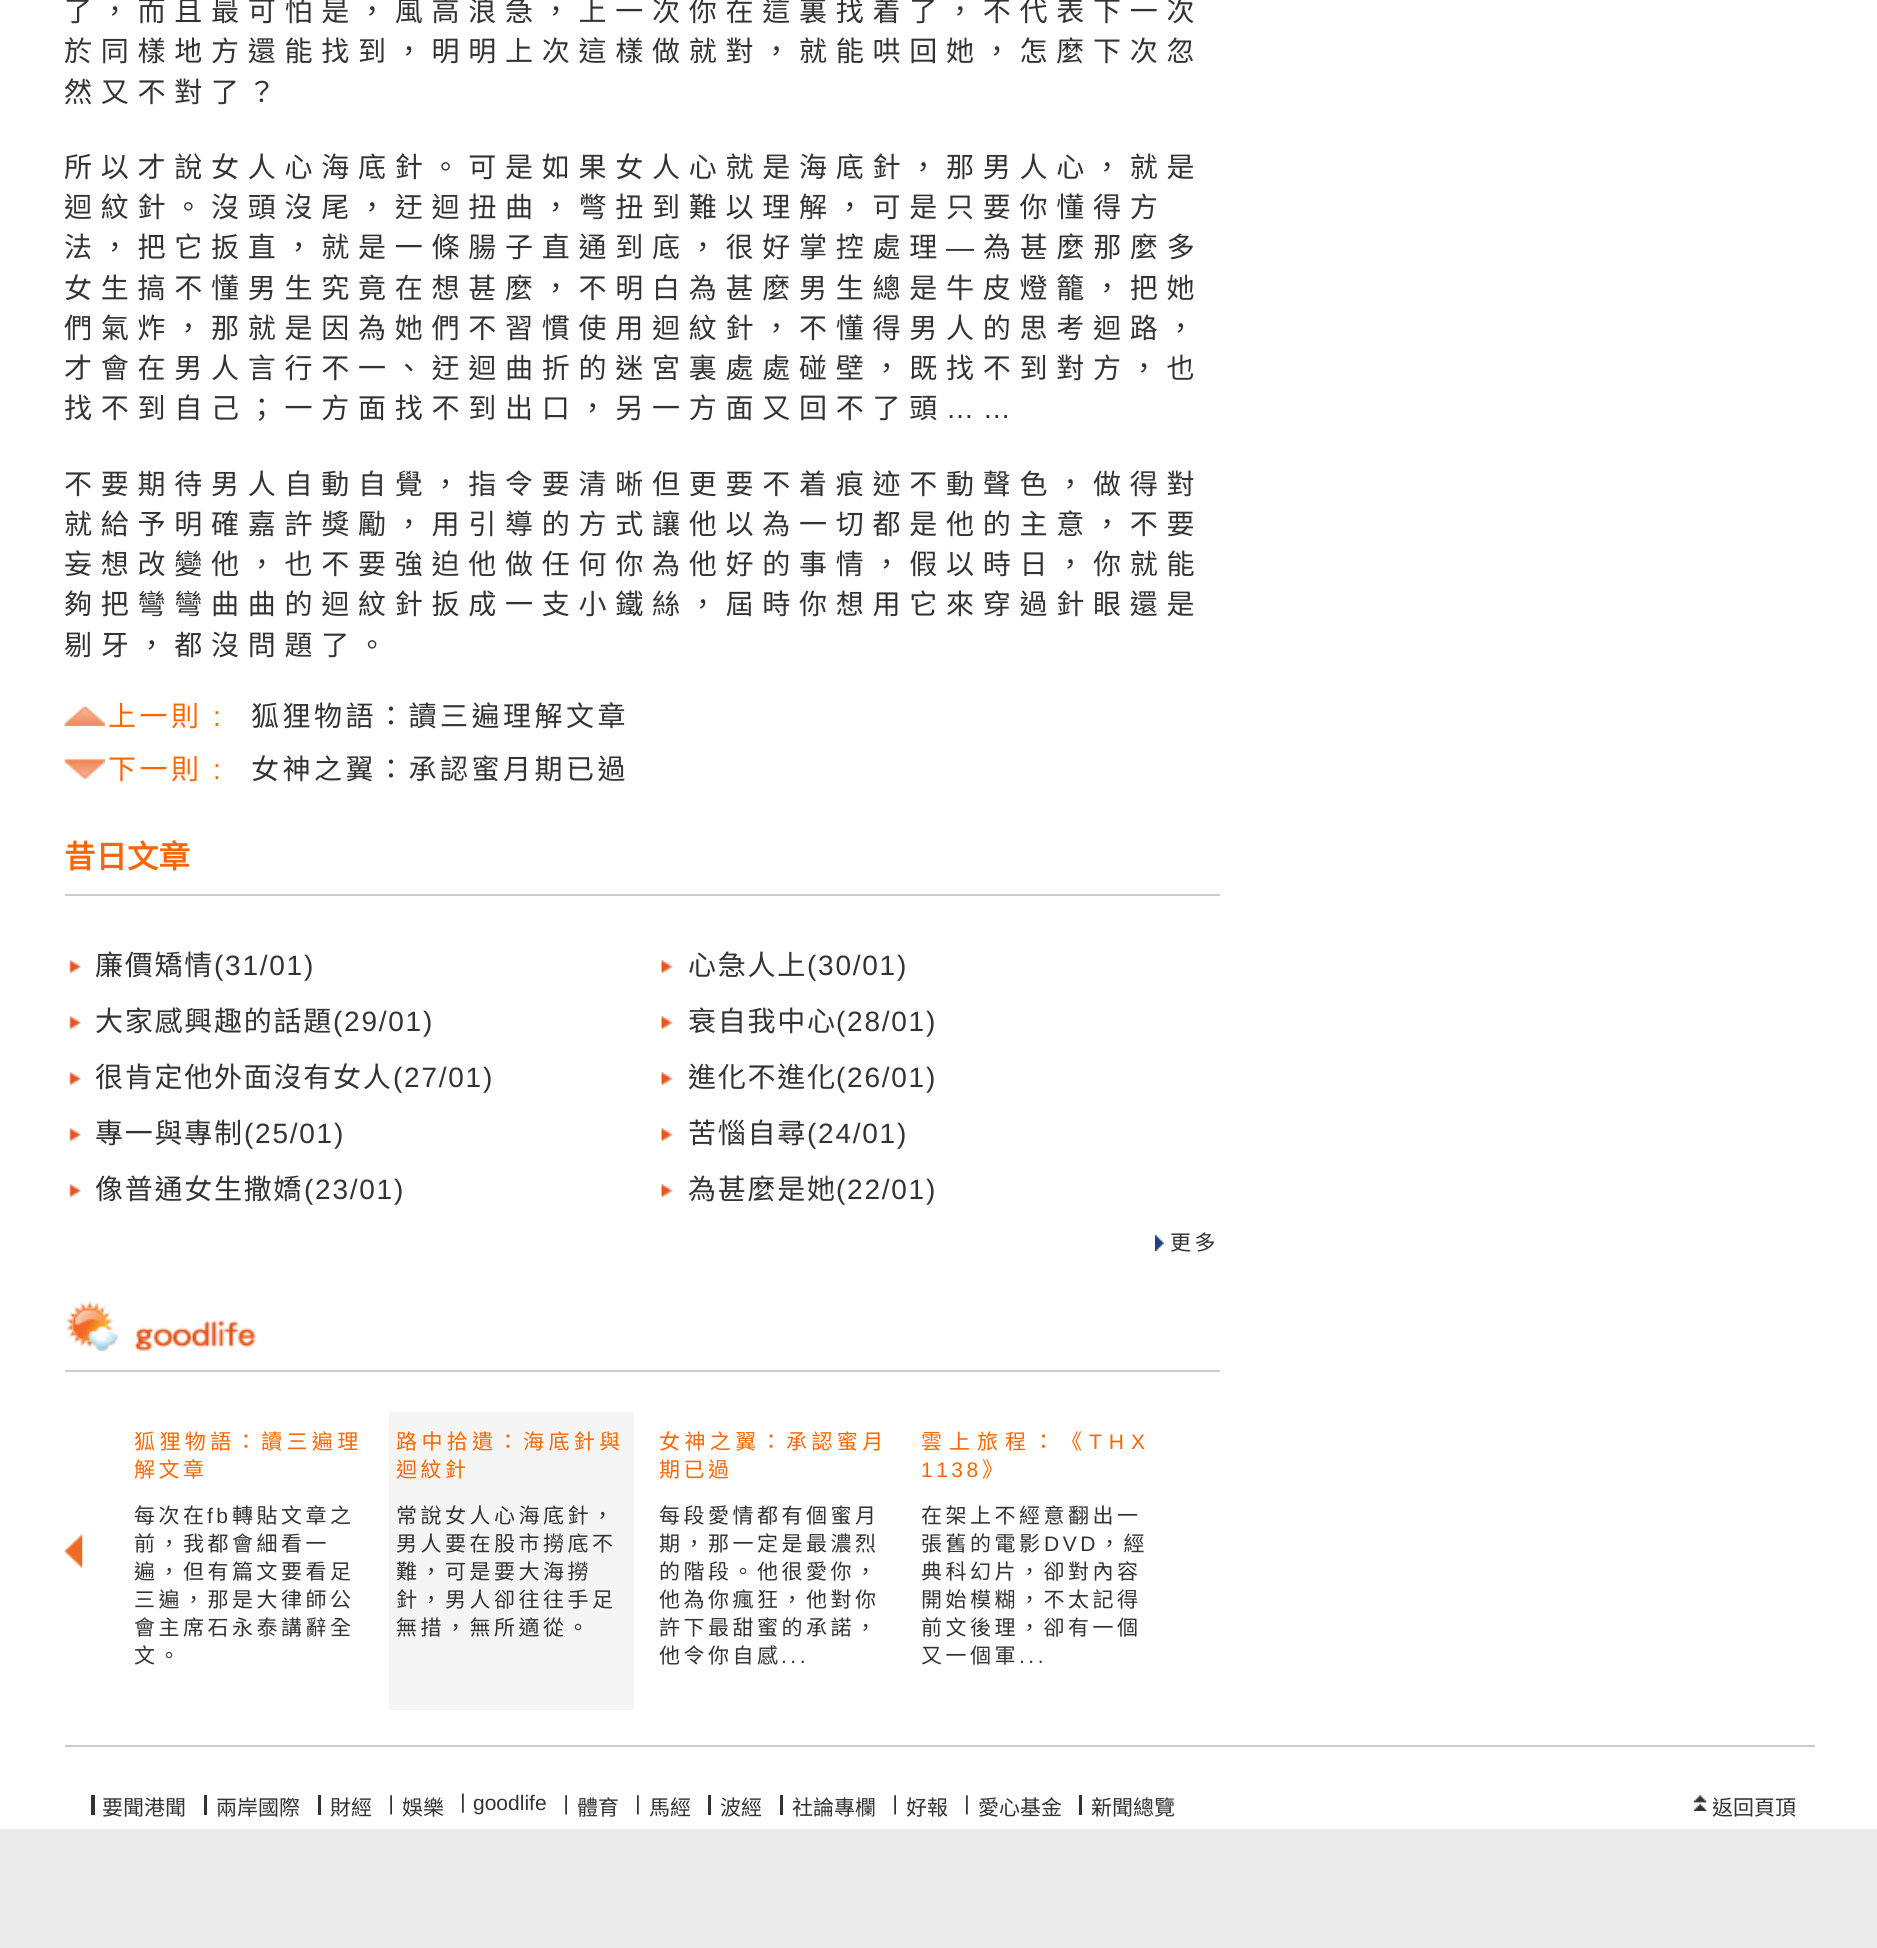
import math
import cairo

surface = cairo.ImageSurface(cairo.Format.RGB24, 1877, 1948)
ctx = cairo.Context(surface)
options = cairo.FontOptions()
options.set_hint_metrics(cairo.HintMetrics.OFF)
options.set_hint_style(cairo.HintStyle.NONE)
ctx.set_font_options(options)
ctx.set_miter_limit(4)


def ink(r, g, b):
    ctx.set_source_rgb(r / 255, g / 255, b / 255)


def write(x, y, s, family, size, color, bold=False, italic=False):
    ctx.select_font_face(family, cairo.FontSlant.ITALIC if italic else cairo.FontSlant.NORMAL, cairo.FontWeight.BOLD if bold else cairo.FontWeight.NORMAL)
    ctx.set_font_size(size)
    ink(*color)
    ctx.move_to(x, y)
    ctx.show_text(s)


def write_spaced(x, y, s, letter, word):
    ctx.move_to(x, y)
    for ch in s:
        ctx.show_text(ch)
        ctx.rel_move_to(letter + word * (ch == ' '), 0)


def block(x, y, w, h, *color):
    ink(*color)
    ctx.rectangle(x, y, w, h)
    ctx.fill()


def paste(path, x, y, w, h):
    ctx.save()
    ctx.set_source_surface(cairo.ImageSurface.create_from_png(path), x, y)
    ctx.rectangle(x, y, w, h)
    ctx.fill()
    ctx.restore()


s1 = dict(family="Noto Sans CJK HK", size=31.5, color=(255, 102, 0), bold=True)
s2 = dict(family="Noto Sans CJK HK", size=21, color=(51, 51, 51))
s3 = dict(family="Liberation Sans", size=21, color=(51, 51, 51))

ink(255, 255, 255)
ctx.paint()
ctx.select_font_face("Noto Sans CJK HK")
ctx.set_font_size(28)
ink(51, 51, 51)
write_spaced(64, 21, "了，而且最可怕是，風高浪急，上一次你在這裏找着了，不代表下一次", 8.75, 0)
write_spaced(64, 61, "於同樣地方還能找到，明明上次這樣做就對，就能哄回她，怎麼下次忽", 8.75, 0)
write_spaced(64, 102, "然又不對了？", 8.75, 0)
write_spaced(64, 177, "所以才說女人心海底針。可是如果女人心就是海底針，那男人心，就是", 8.75, 0)
write_spaced(64, 217, "迴紋針。沒頭沒尾，迂迴扭曲，彆扭到難以理解，可是只要你懂得方", 8.75, 0)
write_spaced(64, 257, "法，把它扳直，就是一條腸子直通到底，很好掌控處理", 8.75, 0)
ctx.select_font_face("Liberation Sans")
write_spaced(946, 257, "—", 8.75, 0)
ctx.select_font_face("Noto Sans CJK HK")
write_spaced(983, 257, "為甚麼那麼多", 8.75, 0)
write_spaced(64, 298, "女生搞不懂男生究竟在想甚麼，不明白為甚麼男生總是牛皮燈籠，把她", 8.75, 0)
write_spaced(64, 338, "們氣炸，那就是因為她們不習慣使用迴紋針，不懂得男人的思考迴路，", 8.75, 0)
write_spaced(64, 378, "才會在男人言行不一、迂迴曲折的迷宮裏處處碰壁，既找不到對方，也", 8.75, 0)
write_spaced(64, 418, "找不到自己；一方面找不到出口，另一方面又回不了頭", 8.75, 0)
ctx.select_font_face("Liberation Sans")
write_spaced(946, 418, "……", 8.75, 0)
ctx.select_font_face("Noto Sans CJK HK")
write_spaced(64, 494, "不要期待男人自動自覺，指令要清晰但更要不着痕迹不動聲色，做得對", 8.75, 0)
write_spaced(64, 534, "就給予明確嘉許獎勵，用引導的方式讓他以為一切都是他的主意，不要", 8.75, 0)
write_spaced(64, 574, "妄想改變他，也不要強迫他做任何你為他好的事情，假以時日，你就能", 8.75, 0)
write_spaced(64, 614, "夠把彎彎曲曲的迴紋針扳成一支小鐵絲，屆時你想用它來穿過針眼還是", 8.75, 0)
write_spaced(64, 655, "剔牙，都沒問題了。", 8.75, 0)
paste("pic1.png", 64, 706, 41, 20)
ink(255, 102, 0)
write_spaced(108, 726, "上一則", 3.5, 0)
ctx.select_font_face("Liberation Sans")
write_spaced(213, 726, ":", 3.5, 0)
ctx.select_font_face("Noto Sans CJK HK")
ink(51, 51, 51)
write_spaced(251, 726, "狐狸物語：讀三遍理解文章", 3.5, 0)
paste("pic2.png", 64, 758, 41, 21)
ink(255, 102, 0)
write_spaced(108, 779, "下一則", 3.5, 0)
ctx.select_font_face("Liberation Sans")
write_spaced(213, 779, ":", 3.5, 0)
ctx.select_font_face("Noto Sans CJK HK")
ink(51, 51, 51)
write_spaced(251, 779, "女神之翼：承認蜜月期已過", 3.5, 0)
write(64, 868, "昔日文章", **s1)
block(65, 894, 1155, 2, 204, 204, 204)
paste("pic3.png", 69, 960, 12, 14)
ctx.select_font_face("Noto Sans CJK HK")
ctx.set_font_size(28)
ink(51, 51, 51)
write_spaced(95, 975, "廉價矯情", 1.75, 0)
ctx.select_font_face("Liberation Sans")
write_spaced(214, 975, "(31/01)", 1.75, 0)
paste("pic3.png", 69, 1016, 12, 14)
ctx.select_font_face("Noto Sans CJK HK")
write_spaced(95, 1031, "大家感興趣的話題", 1.75, 0)
ctx.select_font_face("Liberation Sans")
write_spaced(333, 1031, "(29/01)", 1.75, 0)
paste("pic3.png", 69, 1072, 12, 14)
ctx.select_font_face("Noto Sans CJK HK")
write_spaced(95, 1087, "很肯定他外面沒有女人", 1.75, 0)
ctx.select_font_face("Liberation Sans")
write_spaced(393, 1087, "(27/01)", 1.75, 0)
paste("pic3.png", 69, 1128, 12, 14)
ctx.select_font_face("Noto Sans CJK HK")
write_spaced(95, 1143, "專一與專制", 1.75, 0)
ctx.select_font_face("Liberation Sans")
write_spaced(244, 1143, "(25/01)", 1.75, 0)
paste("pic3.png", 69, 1184, 12, 14)
ctx.select_font_face("Noto Sans CJK HK")
write_spaced(95, 1199, "像普通女生撒嬌", 1.75, 0)
ctx.select_font_face("Liberation Sans")
write_spaced(304, 1199, "(23/01)", 1.75, 0)
paste("pic4.png", 661, 960, 12, 14)
ctx.select_font_face("Noto Sans CJK HK")
write_spaced(688, 975, "心急人上", 1.75, 0)
ctx.select_font_face("Liberation Sans")
write_spaced(807, 975, "(30/01)", 1.75, 0)
paste("pic4.png", 661, 1016, 12, 14)
ctx.select_font_face("Noto Sans CJK HK")
write_spaced(688, 1031, "衰自我中心", 1.75, 0)
ctx.select_font_face("Liberation Sans")
write_spaced(836, 1031, "(28/01)", 1.75, 0)
paste("pic4.png", 661, 1072, 12, 14)
ctx.select_font_face("Noto Sans CJK HK")
write_spaced(688, 1087, "進化不進化", 1.75, 0)
ctx.select_font_face("Liberation Sans")
write_spaced(836, 1087, "(26/01)", 1.75, 0)
paste("pic4.png", 661, 1128, 12, 14)
ctx.select_font_face("Noto Sans CJK HK")
write_spaced(688, 1143, "苦惱自尋", 1.75, 0)
ctx.select_font_face("Liberation Sans")
write_spaced(807, 1143, "(24/01)", 1.75, 0)
paste("pic4.png", 661, 1184, 12, 14)
ctx.select_font_face("Noto Sans CJK HK")
write_spaced(688, 1199, "為甚麼是她", 1.75, 0)
ctx.select_font_face("Liberation Sans")
write_spaced(836, 1199, "(22/01)", 1.75, 0)
paste("pic5.png", 1155, 1235, 9, 16)
ctx.select_font_face("Noto Sans CJK HK")
ctx.set_font_size(21)
write_spaced(1170, 1250, "更多", 3.5, 0)
paste("pic6.png", 66, 1301, 190, 51)
block(65, 1370, 1155, 2, 204, 204, 204)
paste("pic7.png", 64, 1534, 19, 34)
ink(255, 102, 0)
write_spaced(134, 1449, "狐狸物語：讀三遍理", 4.4, 0)
write_spaced(134, 1477, "解文章", 3.5, 0)
ink(51, 51, 51)
write_spaced(134, 1523, "每次在", 3.5, 0)
ctx.select_font_face("Liberation Sans")
write_spaced(207, 1523, "fb", 3.5, 0)
ctx.select_font_face("Noto Sans CJK HK")
write_spaced(232, 1523, "轉貼文章之", 3.5, 0)
write_spaced(134, 1551, "前，我都會細看一", 3.5, 0)
write_spaced(134, 1579, "遍，但有篇文要看足", 3.5, 0)
write_spaced(134, 1607, "三遍，那是大律師公", 3.5, 0)
write_spaced(134, 1635, "會主席石永泰講辭全", 3.5, 0)
write_spaced(134, 1663, "文。", 3.5, 0)
block(389, 1412, 245, 298, 245, 245, 245)
ink(255, 102, 0)
write_spaced(396, 1449, "路中拾遺：海底針與", 4.4, 0)
write_spaced(396, 1477, "迴紋針", 3.5, 0)
ink(51, 51, 51)
write_spaced(396, 1523, "常說女人心海底針，", 3.5, 0)
write_spaced(396, 1551, "男人要在股市撈底不", 3.5, 0)
write_spaced(396, 1579, "難，可是要大海撈", 3.5, 0)
write_spaced(396, 1607, "針，男人卻往往手足", 3.5, 0)
write_spaced(396, 1635, "無措，無所適從。", 3.5, 0)
ink(255, 102, 0)
write_spaced(659, 1449, "女神之翼：承認蜜月", 4.4, 0)
write_spaced(659, 1477, "期已過", 3.5, 0)
ink(51, 51, 51)
write_spaced(659, 1523, "每段愛情都有個蜜月", 3.5, 0)
write_spaced(659, 1551, "期，那一定是最濃烈", 3.5, 0)
write_spaced(659, 1579, "的階段。他很愛你，", 3.5, 0)
write_spaced(659, 1607, "他為你瘋狂，他對你", 3.5, 0)
write_spaced(659, 1635, "許下最甜蜜的承諾，", 3.5, 0)
write_spaced(659, 1663, "他令你自感", 3.5, 0)
ctx.select_font_face("Liberation Sans")
write_spaced(781, 1663, "...", 3.5, 0)
ctx.select_font_face("Noto Sans CJK HK")
ink(255, 102, 0)
write_spaced(921, 1449, "雲上旅程：《", 7, 0)
ctx.select_font_face("Liberation Sans")
write_spaced(1089, 1449, "THX", 7, 0)
write_spaced(921, 1477, "1138", 3.5, 0)
ctx.select_font_face("Noto Sans CJK HK")
write_spaced(982, 1477, "》", 3.5, 0)
ink(51, 51, 51)
write_spaced(921, 1523, "在架上不經意翻出一", 3.5, 0)
write_spaced(921, 1551, "張舊的電影", 3.5, 0)
ctx.select_font_face("Liberation Sans")
write_spaced(1044, 1551, "DVD", 3.5, 0)
ctx.select_font_face("Noto Sans CJK HK")
write_spaced(1099, 1551, "，經", 3.5, 0)
write_spaced(921, 1579, "典科幻片，卻對內容", 3.5, 0)
write_spaced(921, 1607, "開始模糊，不太記得", 3.5, 0)
write_spaced(921, 1635, "前文後理，卻有一個", 3.5, 0)
write_spaced(921, 1663, "又一個軍", 3.5, 0)
ctx.select_font_face("Liberation Sans")
write_spaced(1019, 1663, "...", 3.5, 0)
block(65, 1745, 1750, 2, 204, 204, 204)
block(91, 1795, 4, 20, 51, 51, 51)
write(102, 1815, "要聞港聞", **s2)
block(204, 1795, 3, 20, 51, 51, 51)
write(216, 1815, "兩岸國際", **s2)
block(318, 1795, 3, 20, 51, 51, 51)
write(330, 1815, "財經", **s2)
paste("pic8.png", 390, 1795, 2, 20)
write(402, 1815, "娛樂", **s2)
paste("pic9.png", 462, 1793, 2, 20)
write(473, 1810, "goodlife", **s3)
paste("pic8.png", 565, 1795, 2, 20)
write(577, 1815, "體育", **s2)
paste("pic10.png", 637, 1795, 2, 20)
write(649, 1815, "馬經", **s2)
block(708, 1795, 3, 20, 51, 51, 51)
write(720, 1815, "波經", **s2)
block(780, 1795, 3, 20, 51, 51, 51)
write(792, 1815, "社論專欄", **s2)
paste("pic8.png", 894, 1795, 2, 20)
write(906, 1815, "好報", **s2)
paste("pic10.png", 966, 1795, 2, 20)
write(978, 1815, "愛心基金", **s2)
block(1079, 1795, 3, 20, 51, 51, 51)
write(1091, 1815, "新聞總覽", **s2)
paste("pic11.png", 1694, 1795, 13, 16)
write(1712, 1815, "返回頁頂", **s2)
block(0, 1829, 1877, 119, 234, 234, 234)
surface.write_to_png("screenshot.png")
